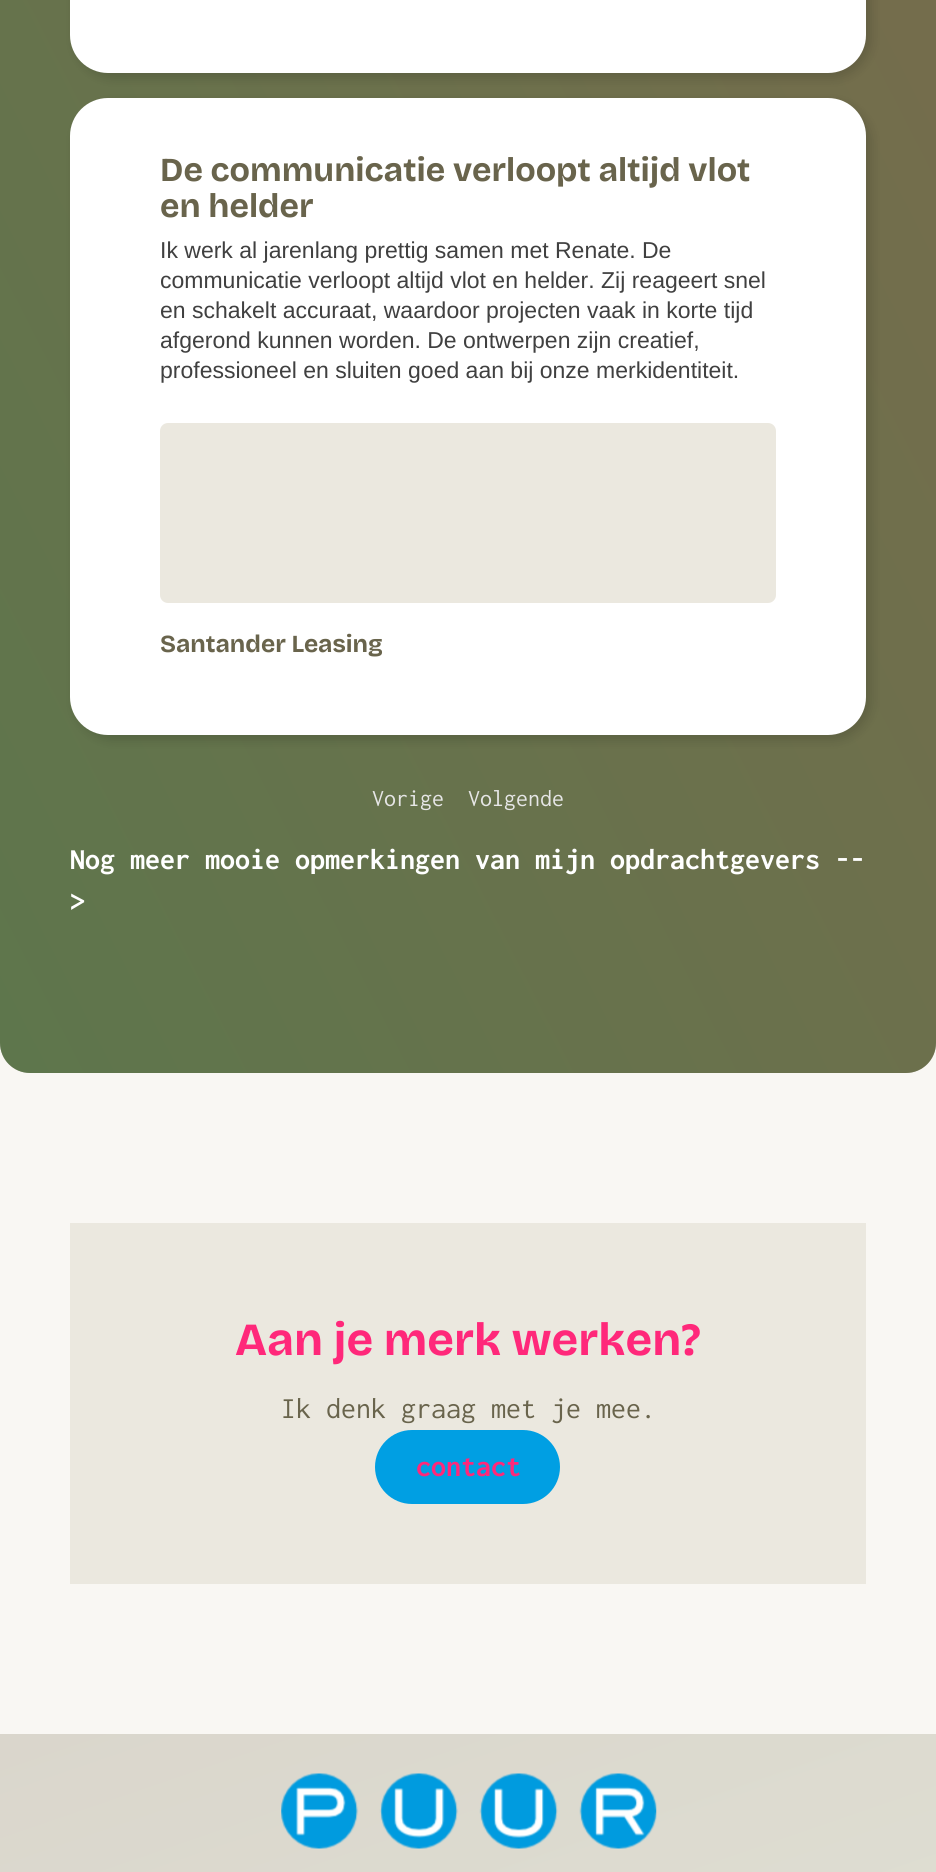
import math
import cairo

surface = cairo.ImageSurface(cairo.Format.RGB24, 936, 1872)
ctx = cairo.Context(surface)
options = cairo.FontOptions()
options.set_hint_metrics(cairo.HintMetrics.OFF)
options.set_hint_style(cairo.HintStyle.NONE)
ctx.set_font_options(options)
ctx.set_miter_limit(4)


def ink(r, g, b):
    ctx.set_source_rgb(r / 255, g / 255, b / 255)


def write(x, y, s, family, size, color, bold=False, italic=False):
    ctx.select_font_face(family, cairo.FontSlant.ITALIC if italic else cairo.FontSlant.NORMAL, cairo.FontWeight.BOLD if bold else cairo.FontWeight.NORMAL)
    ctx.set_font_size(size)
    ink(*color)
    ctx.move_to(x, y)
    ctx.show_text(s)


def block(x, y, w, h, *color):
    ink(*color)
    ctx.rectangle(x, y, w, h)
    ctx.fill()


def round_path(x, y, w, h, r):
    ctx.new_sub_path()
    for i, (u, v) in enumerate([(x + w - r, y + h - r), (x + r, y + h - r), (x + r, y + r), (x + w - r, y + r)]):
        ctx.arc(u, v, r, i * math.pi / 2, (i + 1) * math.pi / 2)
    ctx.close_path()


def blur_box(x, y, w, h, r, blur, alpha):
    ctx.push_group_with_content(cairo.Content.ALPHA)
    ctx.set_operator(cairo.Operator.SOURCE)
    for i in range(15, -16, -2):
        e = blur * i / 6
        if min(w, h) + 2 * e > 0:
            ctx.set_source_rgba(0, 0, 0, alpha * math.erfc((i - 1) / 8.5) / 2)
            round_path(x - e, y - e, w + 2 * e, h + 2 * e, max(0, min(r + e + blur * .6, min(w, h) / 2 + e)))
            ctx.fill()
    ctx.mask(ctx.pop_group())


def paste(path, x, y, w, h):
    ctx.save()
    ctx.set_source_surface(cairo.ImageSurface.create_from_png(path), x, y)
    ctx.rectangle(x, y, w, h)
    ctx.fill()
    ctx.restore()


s1 = dict(family="Bricolage Grotesque", size=33.5, color=(105, 100, 76), bold=True)
s2 = dict(family="Liberation Sans", size=23, color=(64, 64, 64))
s3 = dict(family="Bricolage Grotesque", size=24.5, color=(105, 100, 76), bold=True)
s4 = dict(family="Inconsolata", size=24, color=(230, 230, 230))
s5 = dict(family="Inconsolata", size=30, color=(255, 255, 255), bold=True)
s6 = dict(family="Bricolage Grotesque", size=46, color=(255, 40, 122), bold=True)
s7 = dict(family="Inconsolata", size=30, color=(105, 100, 76))
s8 = dict(family="Inconsolata", size=30, color=(255, 40, 122), bold=True)

ink(249, 247, 243)
ctx.paint()
ink(105, 100, 76)
round_path(0, -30, 936, 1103, 30)
ctx.fill()
gradient = cairo.LinearGradient(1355, -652, -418, 252)
gradient.add_color_stop_rgba(0, 0.71, 0.447, 0.31, 0.31)
gradient.add_color_stop_rgba(1, 0.275, 0.62, 0.302, 0.31)
ctx.set_source(gradient)
round_path(0, -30, 936, 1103, 30)
ctx.fill()
ink(0, 0, 0)
blur_box(75, -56, 796, 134, 38, 6, 0.15)
ink(255, 255, 255)
round_path(70, -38, 796, 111, 38)
ctx.fill()
ink(0, 0, 0)
blur_box(75, 103, 796, 637, 38, 6, 0.15)
ink(255, 255, 255)
round_path(70, 98, 796, 637, 38)
ctx.fill()
write(160, 181, "De communicatie verloopt altijd vlot", **s1)
write(160, 217, "en helder", **s1)
write(160, 258, "Ik werk al jarenlang prettig samen met Renate. De", **s2)
write(160, 288, "communicatie verloopt altijd vlot en helder. Zij reageert snel", **s2)
write(160, 318, "en schakelt accuraat, waardoor projecten vaak in korte tijd", **s2)
write(160, 348, "afgerond kunnen worden. De ontwerpen zijn creatief,", **s2)
write(160, 378, "professioneel en sluiten goed aan bij onze merkidentiteit.", **s2)
ink(235, 232, 223)
round_path(160, 423, 616, 180, 8)
ctx.fill()
write(160, 652, "Santander Leasing", **s3)
write(372, 806, "Vorige", **s4)
write(468, 806, "Volgende", **s4)
write(70, 869, "Nog meer mooie opmerkingen van mijn opdrachtgevers --", **s5)
write(70, 911, ">", **s5)
block(70, 1223, 796, 361, 235, 232, 223)
write(235, 1355, "Aan je merk werken?", **s6)
write(281, 1418, "Ik denk graag met je mee.", **s7)
ink(0, 159, 227)
round_path(375, 1430, 185, 74, 37)
ctx.fill()
write(416, 1476, "contact", **s8)
gradient = cairo.LinearGradient(333, 1619, 603, 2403)
gradient.add_color_stop_rgba(0, 0.855, 0.839, 0.8, 1)
gradient.add_color_stop_rgba(1, 0.882, 0.89, 0.839, 1)
ctx.set_source(gradient)
ctx.rectangle(0, 1734, 936, 138)
ctx.fill()
paste("pic1.png", 281, 1773, 376, 76)
surface.write_to_png("screenshot.png")
